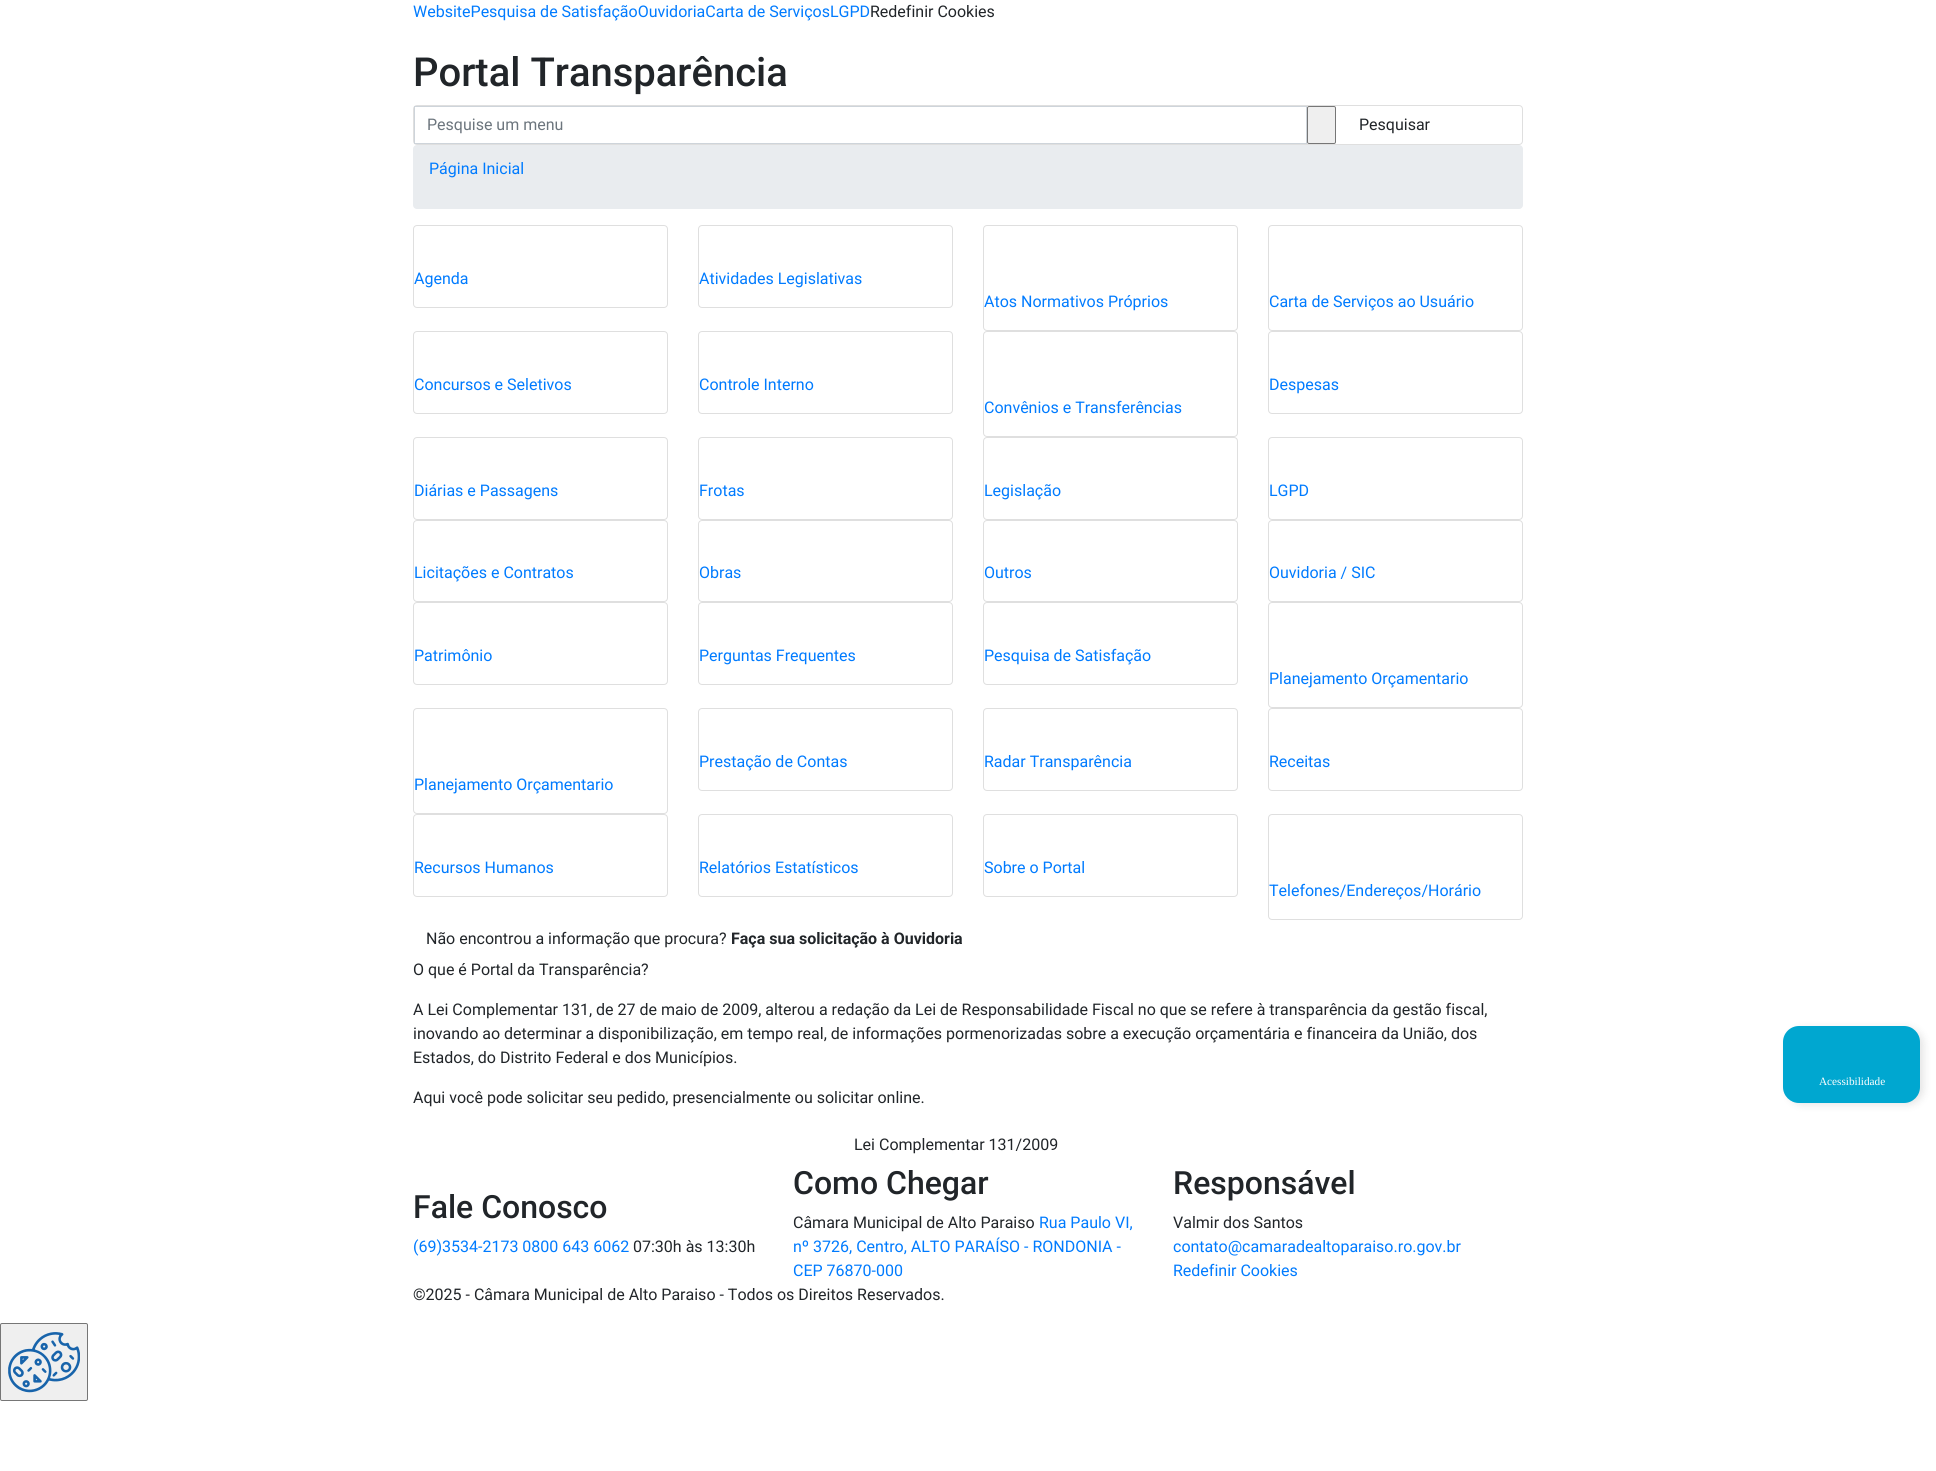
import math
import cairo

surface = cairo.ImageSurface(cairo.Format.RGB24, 1936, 1471)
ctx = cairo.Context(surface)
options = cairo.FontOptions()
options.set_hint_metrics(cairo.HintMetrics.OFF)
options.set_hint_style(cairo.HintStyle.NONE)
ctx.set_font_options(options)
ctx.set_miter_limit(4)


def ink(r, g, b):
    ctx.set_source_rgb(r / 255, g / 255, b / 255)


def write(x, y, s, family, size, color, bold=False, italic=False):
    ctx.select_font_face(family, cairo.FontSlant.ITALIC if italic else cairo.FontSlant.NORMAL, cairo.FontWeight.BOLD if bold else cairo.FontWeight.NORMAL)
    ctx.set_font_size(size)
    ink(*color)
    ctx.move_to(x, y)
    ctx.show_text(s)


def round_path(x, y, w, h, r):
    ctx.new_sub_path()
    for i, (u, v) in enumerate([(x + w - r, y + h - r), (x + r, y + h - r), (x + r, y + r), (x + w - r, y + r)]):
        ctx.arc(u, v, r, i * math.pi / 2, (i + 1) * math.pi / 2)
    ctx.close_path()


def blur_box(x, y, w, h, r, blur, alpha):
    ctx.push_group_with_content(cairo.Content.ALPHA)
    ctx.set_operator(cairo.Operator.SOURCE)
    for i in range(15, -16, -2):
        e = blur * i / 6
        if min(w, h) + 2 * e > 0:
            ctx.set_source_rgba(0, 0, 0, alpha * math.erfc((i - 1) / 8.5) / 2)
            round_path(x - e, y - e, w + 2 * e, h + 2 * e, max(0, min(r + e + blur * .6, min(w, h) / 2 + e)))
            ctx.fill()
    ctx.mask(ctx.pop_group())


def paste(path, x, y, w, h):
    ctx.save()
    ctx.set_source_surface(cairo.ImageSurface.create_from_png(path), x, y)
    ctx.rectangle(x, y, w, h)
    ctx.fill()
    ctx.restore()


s1 = dict(family="Roboto", size=16, color=(0, 123, 255))
s2 = dict(family="Roboto", size=16, color=(33, 37, 41))
s3 = dict(family="Roboto Medium", size=40, color=(33, 37, 41))
s4 = dict(family="Roboto", size=16, color=(108, 117, 125))
s5 = dict(family="Roboto", size=16, color=(33, 37, 41), bold=True)
s6 = dict(family="Roboto Medium", size=32, color=(33, 37, 41))
s7 = dict(family="Liberation Serif", size=11.25, color=(255, 255, 255))

ink(255, 255, 255)
ctx.paint()
write(413, 17, "WebsitePesquisa de SatisfaçãoOuvidoriaCarta de ServiçosLGPD", **s1)
write(870, 17, "Redefinir Cookies", **s2)
write(413, 86, "Portal Transparência", **s3)
round_path(413.5, 105.5, 1109, 39, 3.5)
ink(223, 223, 223)
ctx.set_line_width(1)
ctx.stroke()
ctx.rectangle(414.5, 106.5, 892, 37)
ink(206, 212, 218)
ctx.stroke()
write(427, 130, "Pesquise um menu", **s4)
ink(239, 239, 239)
round_path(1307.5, 106.5, 28, 37, 1.5)
ctx.fill_preserve()
ink(118, 118, 118)
ctx.stroke()
write(1359, 130, "Pesquisar", **s2)
ink(233, 236, 239)
round_path(413, 145, 1110, 64, 4)
ctx.fill()
write(429, 174, "Página Inicial", **s1)
round_path(413.5, 225.5, 254, 82, 3.5)
ink(223, 223, 223)
ctx.stroke()
write(414, 284, "Agenda", **s1)
round_path(698.5, 225.5, 254, 82, 3.5)
ink(223, 223, 223)
ctx.stroke()
write(699, 284, "Atividades Legislativas", **s1)
round_path(983.5, 225.5, 254, 105, 3.5)
ink(223, 223, 223)
ctx.stroke()
write(984, 307, "Atos Normativos Próprios", **s1)
round_path(1268.5, 225.5, 254, 105, 3.5)
ink(223, 223, 223)
ctx.stroke()
write(1269, 307, "Carta de Serviços ao Usuário", **s1)
round_path(413.5, 331.5, 254, 82, 3.5)
ink(223, 223, 223)
ctx.stroke()
write(414, 390, "Concursos e Seletivos", **s1)
round_path(698.5, 331.5, 254, 82, 3.5)
ink(223, 223, 223)
ctx.stroke()
write(699, 390, "Controle Interno", **s1)
round_path(1268.5, 331.5, 254, 82, 3.5)
ink(223, 223, 223)
ctx.stroke()
write(1269, 390, "Despesas", **s1)
round_path(983.5, 331.5, 254, 105, 3.5)
ink(223, 223, 223)
ctx.stroke()
write(984, 413, "Convênios e Transferências", **s1)
round_path(413.5, 437.5, 254, 82, 3.5)
ink(223, 223, 223)
ctx.stroke()
write(414, 496, "Diárias e Passagens", **s1)
round_path(698.5, 437.5, 254, 82, 3.5)
ink(223, 223, 223)
ctx.stroke()
write(699, 496, "Frotas", **s1)
round_path(983.5, 437.5, 254, 82, 3.5)
ink(223, 223, 223)
ctx.stroke()
write(984, 496, "Legislação", **s1)
round_path(1268.5, 437.5, 254, 82, 3.5)
ink(223, 223, 223)
ctx.stroke()
write(1269, 496, "LGPD", **s1)
round_path(413.5, 520.5, 254, 81, 3.5)
ink(223, 223, 223)
ctx.stroke()
write(414, 578, "Licitações e Contratos", **s1)
round_path(698.5, 520.5, 254, 81, 3.5)
ink(223, 223, 223)
ctx.stroke()
write(699, 578, "Obras", **s1)
round_path(983.5, 520.5, 254, 81, 3.5)
ink(223, 223, 223)
ctx.stroke()
write(984, 578, "Outros", **s1)
round_path(1268.5, 520.5, 254, 81, 3.5)
ink(223, 223, 223)
ctx.stroke()
write(1269, 578, "Ouvidoria / SIC", **s1)
round_path(413.5, 602.5, 254, 82, 3.5)
ink(223, 223, 223)
ctx.stroke()
write(414, 661, "Patrimônio", **s1)
round_path(698.5, 602.5, 254, 82, 3.5)
ink(223, 223, 223)
ctx.stroke()
write(699, 661, "Perguntas Frequentes", **s1)
round_path(983.5, 602.5, 254, 82, 3.5)
ink(223, 223, 223)
ctx.stroke()
write(984, 661, "Pesquisa de Satisfação", **s1)
round_path(1268.5, 602.5, 254, 105, 3.5)
ink(223, 223, 223)
ctx.stroke()
write(1269, 684, "Planejamento Orçamentario", **s1)
round_path(698.5, 708.5, 254, 82, 3.5)
ink(223, 223, 223)
ctx.stroke()
write(699, 767, "Prestação de Contas", **s1)
round_path(983.5, 708.5, 254, 82, 3.5)
ink(223, 223, 223)
ctx.stroke()
write(984, 767, "Radar Transparência", **s1)
round_path(1268.5, 708.5, 254, 82, 3.5)
ink(223, 223, 223)
ctx.stroke()
write(1269, 767, "Receitas", **s1)
round_path(413.5, 708.5, 254, 105, 3.5)
ink(223, 223, 223)
ctx.stroke()
write(414, 790, "Planejamento Orçamentario", **s1)
round_path(413.5, 814.5, 254, 82, 3.5)
ink(223, 223, 223)
ctx.stroke()
write(414, 873, "Recursos Humanos", **s1)
round_path(698.5, 814.5, 254, 82, 3.5)
ink(223, 223, 223)
ctx.stroke()
write(699, 873, "Relatórios Estatísticos", **s1)
round_path(983.5, 814.5, 254, 82, 3.5)
ink(223, 223, 223)
ctx.stroke()
write(984, 873, "Sobre o Portal", **s1)
round_path(1268.5, 814.5, 254, 105, 3.5)
ink(223, 223, 223)
ctx.stroke()
write(1269, 896, "Telefones/Endereços/Horário", **s1)
write(426, 944, "Não encontrou a informação que procura?", **s2)
write(731, 944, "Faça sua solicitação à Ouvidoria", **s5)
write(413, 975, "O que é Portal da Transparência?", **s2)
write(413, 1015, "A Lei Complementar 131, de 27 de maio de 2009, alterou a redação da Lei de Responsabilidade Fiscal no que se refere à transparência da gestão fiscal,", **s2)
write(413, 1039, "inovando ao determinar a disponibilização, em tempo real, de informações pormenorizadas sobre a execução orçamentária e financeira da União, dos", **s2)
write(413, 1063, "Estados, do Distrito Federal e dos Municípios.", **s2)
write(413, 1103, "Aqui você pode solicitar seu pedido, presencialmente ou solicitar online.", **s2)
write(854, 1150, "Lei Complementar 131/2009", **s2)
write(413, 1218, "Fale Conosco", **s6)
write(413, 1252, "(69)3534-2173 0800 643 6062", **s1)
write(633, 1252, "07:30h às 13:30h", **s2)
write(793, 1194, "Como Chegar", **s6)
write(793, 1228, "Câmara Municipal de Alto Paraiso", **s2)
write(1039, 1228, "Rua Paulo VI,", **s1)
write(793, 1252, "nº 3726, Centro, ALTO PARAÍSO - RONDONIA -", **s1)
write(793, 1276, "CEP 76870-000", **s1)
write(1173, 1194, "Responsável", **s6)
write(1173, 1228, "Valmir dos Santos", **s2)
write(1173, 1252, "contato@camaradealtoparaiso.ro.gov.br", **s1)
write(1173, 1276, "Redefinir Cookies", **s1)
write(413, 1300, "©2025 - Câmara Municipal de Alto Paraiso - Todos os Direitos Reservados.", **s2)
ink(0, 0, 0)
blur_box(1787, 1028, 137, 77, 16, 4, 0.1)
ink(0, 167, 208)
round_path(1783, 1026, 137, 77, 16)
ctx.fill()
write(1819, 1085, "Acessibilidade", **s7)
ink(239, 239, 239)
round_path(0.5, 1323.5, 87, 77, 1.5)
ctx.fill_preserve()
ink(118, 118, 118)
ctx.stroke()
paste("pic1.png", 8, 1332, 72, 61)
surface.write_to_png("screenshot.png")
